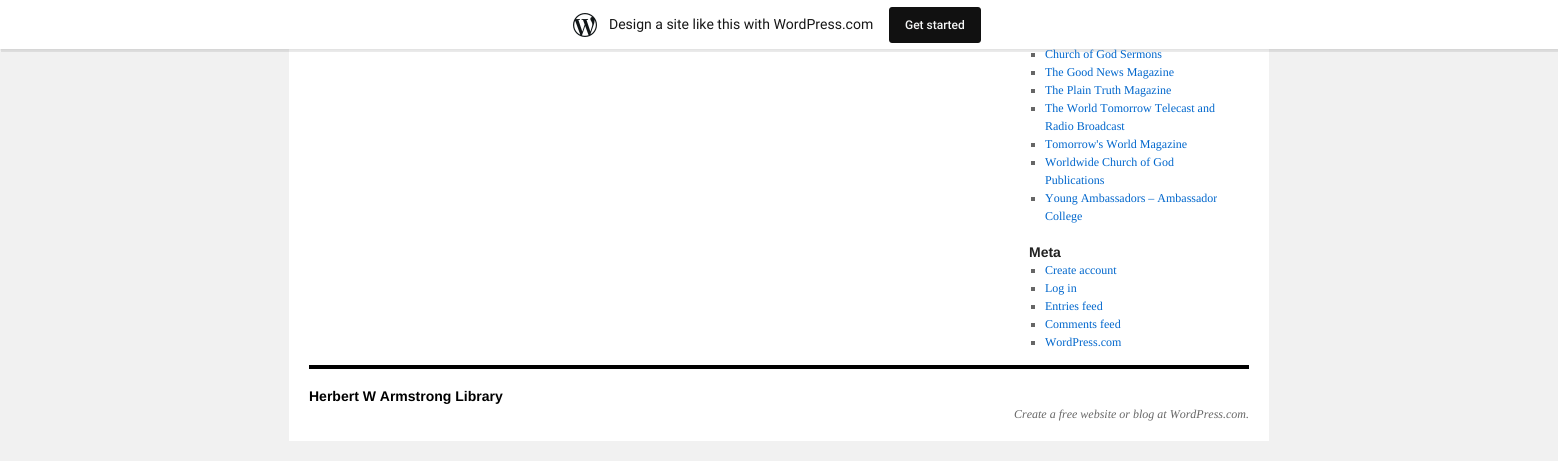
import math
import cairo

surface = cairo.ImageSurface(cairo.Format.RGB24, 1558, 461)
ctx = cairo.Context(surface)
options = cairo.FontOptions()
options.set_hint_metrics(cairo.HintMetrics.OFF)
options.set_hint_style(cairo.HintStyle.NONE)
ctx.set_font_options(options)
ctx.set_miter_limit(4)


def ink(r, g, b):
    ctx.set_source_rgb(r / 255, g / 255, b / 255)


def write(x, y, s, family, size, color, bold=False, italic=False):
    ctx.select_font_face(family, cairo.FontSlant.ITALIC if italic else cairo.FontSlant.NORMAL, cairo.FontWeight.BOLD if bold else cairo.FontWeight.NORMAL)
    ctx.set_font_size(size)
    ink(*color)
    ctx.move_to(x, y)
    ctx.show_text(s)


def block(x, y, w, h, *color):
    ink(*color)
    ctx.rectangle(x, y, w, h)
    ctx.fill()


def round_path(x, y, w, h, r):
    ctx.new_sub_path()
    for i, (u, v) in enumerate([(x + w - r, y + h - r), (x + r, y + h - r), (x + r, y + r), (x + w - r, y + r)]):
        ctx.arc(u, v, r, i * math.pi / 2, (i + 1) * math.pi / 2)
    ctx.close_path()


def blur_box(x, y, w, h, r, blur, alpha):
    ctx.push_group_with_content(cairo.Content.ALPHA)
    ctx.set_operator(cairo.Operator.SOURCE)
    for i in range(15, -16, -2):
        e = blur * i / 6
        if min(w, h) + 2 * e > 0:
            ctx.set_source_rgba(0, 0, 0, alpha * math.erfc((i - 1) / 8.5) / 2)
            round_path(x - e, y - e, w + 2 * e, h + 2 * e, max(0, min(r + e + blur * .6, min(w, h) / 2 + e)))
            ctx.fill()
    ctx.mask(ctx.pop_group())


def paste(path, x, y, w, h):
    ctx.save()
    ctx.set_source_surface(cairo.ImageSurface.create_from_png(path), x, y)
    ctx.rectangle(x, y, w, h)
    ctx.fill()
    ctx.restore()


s1 = dict(family="Roboto", size=14, color=(23, 23, 23))
s2 = dict(family="Roboto Medium", size=12, color=(246, 247, 247))
s3 = dict(family="Liberation Serif", size=12, color=(0, 102, 204))
s4 = dict(family="Liberation Sans", size=14, color=(34, 34, 34), bold=True)
s5 = dict(family="Liberation Sans", size=14, color=(0, 0, 0), bold=True)
s6 = dict(family="Liberation Serif", size=12, color=(102, 102, 102), italic=True)

ink(241, 241, 241)
ctx.paint()
block(289, 49, 980, 392, 255, 255, 255)
block(1031, 53, 4, 4, 102, 102, 102)
ink(0, 0, 0)
blur_box(0, 1, 1558, 49, 0, 1, 0.05)
ctx.set_source_rgba(0, 0, 0, 0.08)
ctx.new_path()
ctx.move_to(1, 49)
ctx.line_to(1, 52)
ctx.line_to(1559, 52)
ctx.line_to(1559, 3)
ctx.line_to(1558, 3)
ctx.line_to(1558, 49)
ctx.close_path()
ctx.fill()
block(0, 0, 1558, 49, 255, 255, 255)
paste("pic1.png", 573, 13, 24, 24)
write(609, 29, "Design a site like this with WordPress.com", **s1)
ink(17, 17, 17)
round_path(889, 7, 92, 36, 3)
ctx.fill()
write(905, 29, "Get started", **s2)
write(1045, 58, "Church of God Sermons", **s3)
block(1031, 71, 4, 4, 102, 102, 102)
write(1045, 76, "The Good News Magazine", **s3)
block(1031, 89, 4, 4, 102, 102, 102)
write(1045, 94, "The Plain Truth Magazine", **s3)
block(1031, 107, 4, 4, 102, 102, 102)
write(1045, 112, "The World Tomorrow Telecast and", **s3)
write(1045, 130, "Radio Broadcast", **s3)
block(1031, 143, 4, 4, 102, 102, 102)
write(1045, 148, "Tomorrow's World Magazine", **s3)
block(1031, 161, 4, 4, 102, 102, 102)
write(1045, 166, "Worldwide Church of God", **s3)
write(1045, 184, "Publications", **s3)
block(1031, 197, 4, 4, 102, 102, 102)
write(1045, 202, "Young Ambassadors – Ambassador", **s3)
write(1045, 220, "College", **s3)
write(1029, 257, "Meta", **s4)
block(1031, 269, 4, 4, 102, 102, 102)
write(1045, 274, "Create account", **s3)
block(1031, 287, 4, 4, 102, 102, 102)
write(1045, 292, "Log in", **s3)
block(1031, 305, 4, 4, 102, 102, 102)
write(1045, 310, "Entries feed", **s3)
block(1031, 323, 4, 4, 102, 102, 102)
write(1045, 328, "Comments feed", **s3)
block(1031, 341, 4, 4, 102, 102, 102)
write(1045, 346, "WordPress.com", **s3)
block(309, 365, 940, 4, 0, 0, 0)
write(309, 401, "Herbert W Armstrong Library", **s5)
write(1014, 418, "Create a free website or blog at WordPress.com.", **s6)
surface.write_to_png("screenshot.png")
